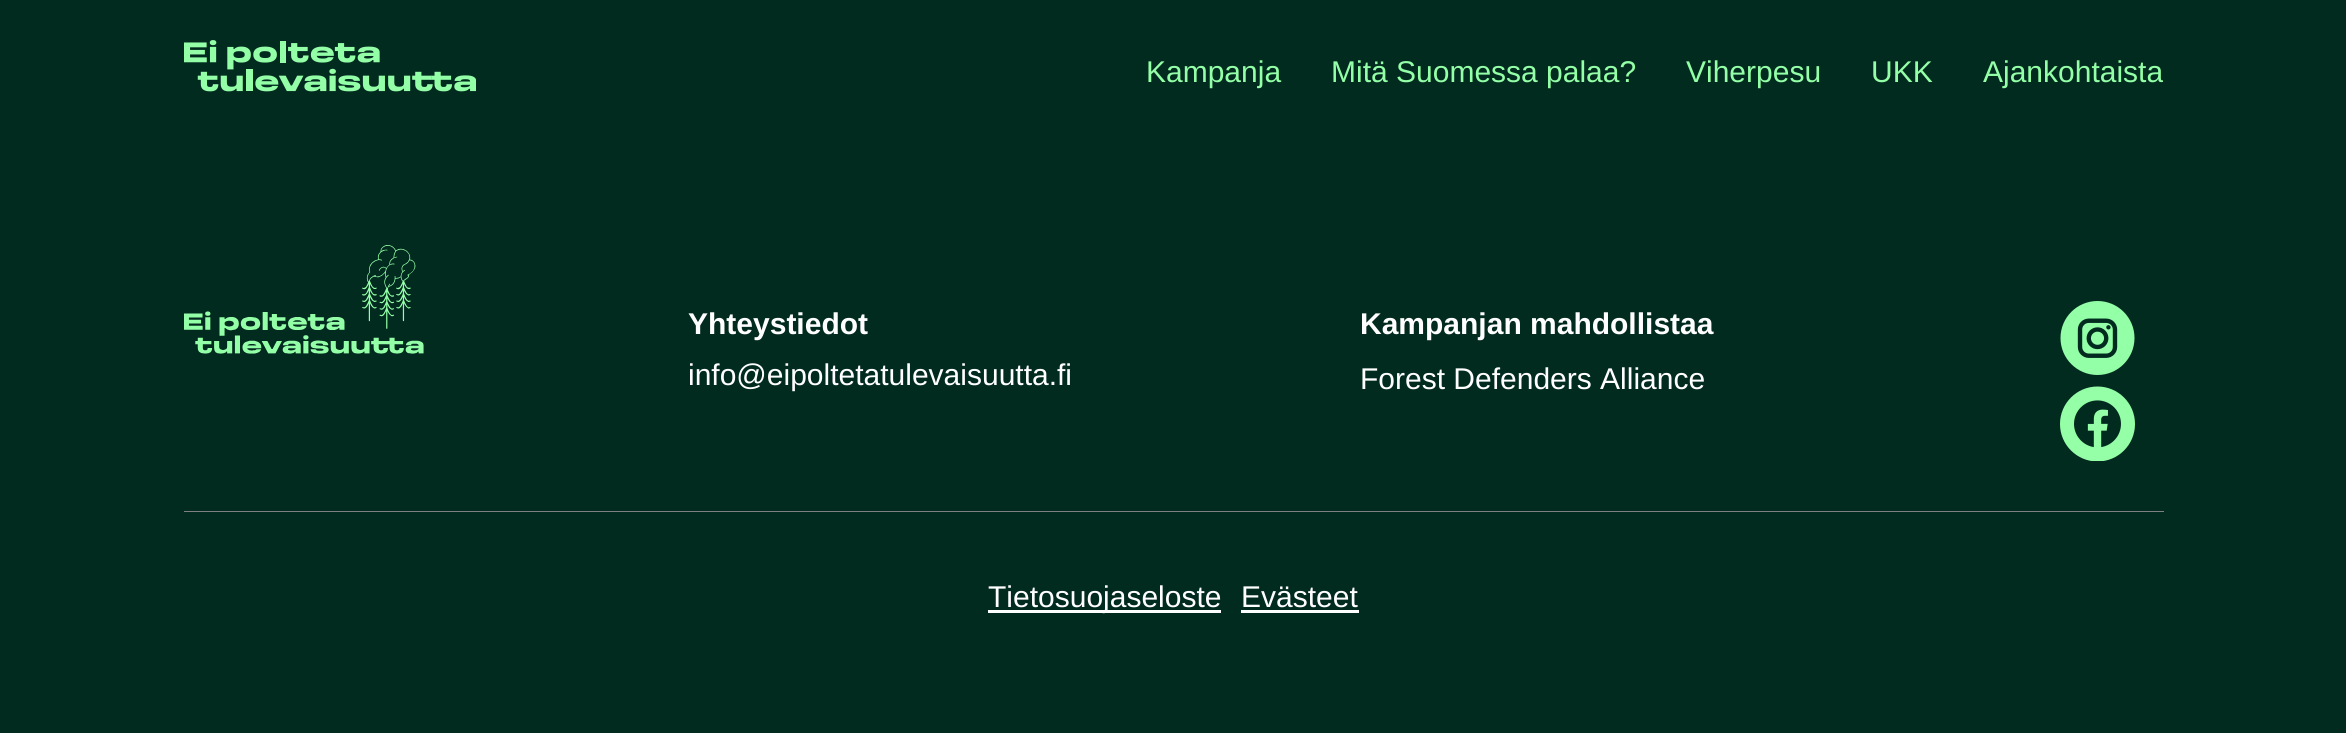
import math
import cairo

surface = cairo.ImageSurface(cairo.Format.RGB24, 2346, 738)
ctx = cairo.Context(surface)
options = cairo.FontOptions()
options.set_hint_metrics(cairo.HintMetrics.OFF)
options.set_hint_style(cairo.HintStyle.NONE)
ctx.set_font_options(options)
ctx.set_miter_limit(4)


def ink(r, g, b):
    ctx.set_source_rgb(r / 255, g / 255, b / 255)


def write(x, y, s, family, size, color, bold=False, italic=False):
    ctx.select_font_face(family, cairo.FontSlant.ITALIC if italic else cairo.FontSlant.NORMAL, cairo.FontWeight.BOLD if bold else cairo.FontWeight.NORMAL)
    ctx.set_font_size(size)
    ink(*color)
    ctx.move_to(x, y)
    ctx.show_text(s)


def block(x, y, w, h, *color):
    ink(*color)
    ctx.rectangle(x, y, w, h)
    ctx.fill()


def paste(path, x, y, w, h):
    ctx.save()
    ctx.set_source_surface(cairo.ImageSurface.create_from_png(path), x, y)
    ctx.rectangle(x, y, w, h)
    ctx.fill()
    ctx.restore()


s1 = dict(family="Liberation Sans", size=30, color=(147, 255, 167))
s2 = dict(family="Liberation Sans", size=30, color=(255, 255, 255), bold=True)
s3 = dict(family="Liberation Sans", size=30, color=(255, 255, 255))

ink(255, 255, 255)
ctx.paint()
block(0, 0, 2346, 733, 2, 43, 31)
paste("pic1.png", 184, 40, 292, 52)
write(1146, 82, "Kampanja", **s1)
write(1331, 82, "Mitä Suomessa palaa?", **s1)
write(1686, 82, "Viherpesu", **s1)
write(1871, 82, "UKK", **s1)
write(1983, 82, "Ajankohtaista", **s1)
paste("pic2.png", 184, 245, 240, 109)
write(688, 334, "Yhteystiedot", **s2)
write(688, 385, "info@eipoltetatulevaisuutta.fi", **s3)
write(1360, 334, "Kampanjan mahdollistaa", **s2)
write(1360, 389, "Forest Defenders Alliance", **s3)
paste("pic3.png", 2060, 301, 75, 74)
paste("pic4.png", 2060, 386, 75, 75)
block(184, 511, 1980, 1, 128, 128, 128)
block(988, 610, 233, 3, 255, 255, 255)
write(988, 607, "Tietosuojaseloste", **s3)
write(1241, 607, "Evästeet", **s3)
block(1241, 610, 118, 3, 255, 255, 255)
surface.write_to_png("screenshot.png")
